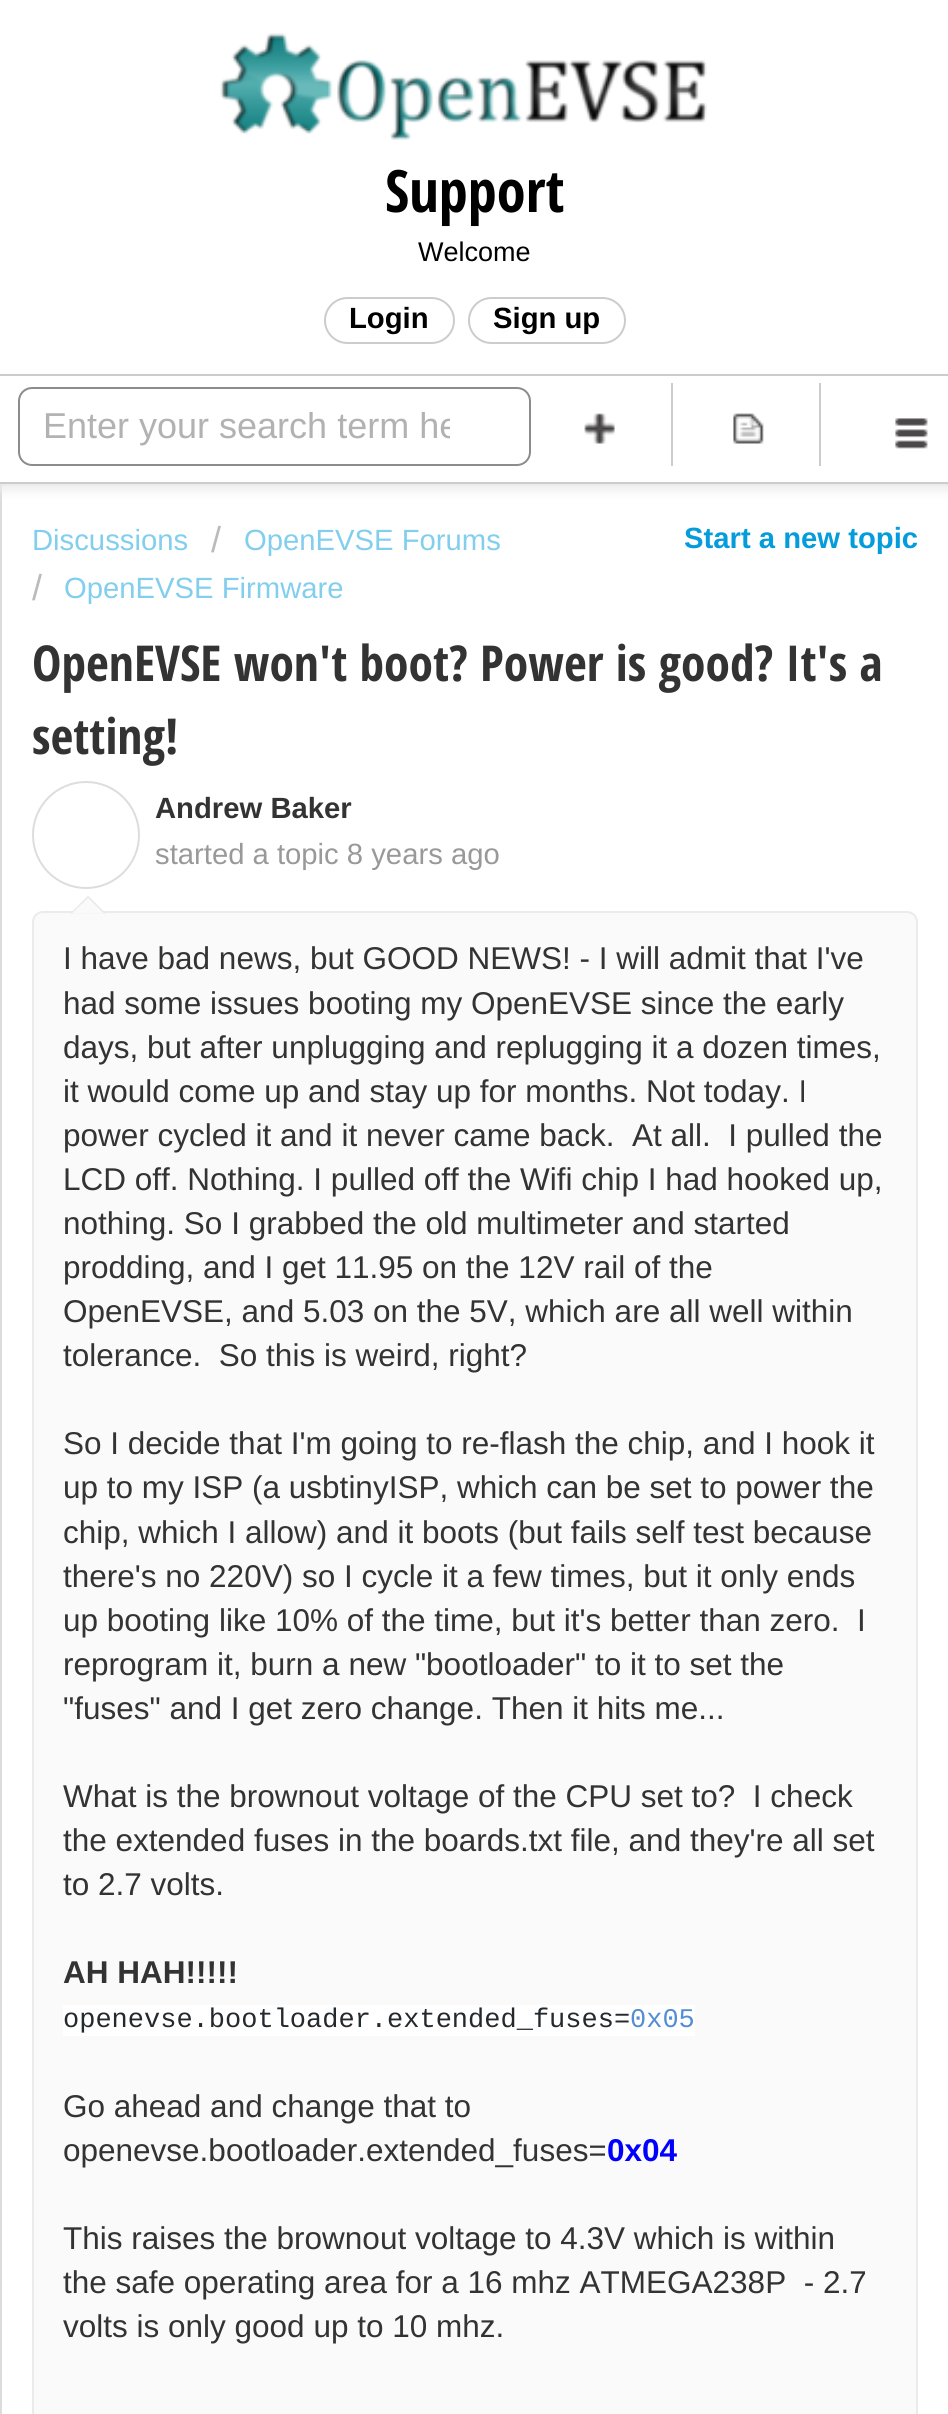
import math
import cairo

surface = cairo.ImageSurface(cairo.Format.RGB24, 948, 2414)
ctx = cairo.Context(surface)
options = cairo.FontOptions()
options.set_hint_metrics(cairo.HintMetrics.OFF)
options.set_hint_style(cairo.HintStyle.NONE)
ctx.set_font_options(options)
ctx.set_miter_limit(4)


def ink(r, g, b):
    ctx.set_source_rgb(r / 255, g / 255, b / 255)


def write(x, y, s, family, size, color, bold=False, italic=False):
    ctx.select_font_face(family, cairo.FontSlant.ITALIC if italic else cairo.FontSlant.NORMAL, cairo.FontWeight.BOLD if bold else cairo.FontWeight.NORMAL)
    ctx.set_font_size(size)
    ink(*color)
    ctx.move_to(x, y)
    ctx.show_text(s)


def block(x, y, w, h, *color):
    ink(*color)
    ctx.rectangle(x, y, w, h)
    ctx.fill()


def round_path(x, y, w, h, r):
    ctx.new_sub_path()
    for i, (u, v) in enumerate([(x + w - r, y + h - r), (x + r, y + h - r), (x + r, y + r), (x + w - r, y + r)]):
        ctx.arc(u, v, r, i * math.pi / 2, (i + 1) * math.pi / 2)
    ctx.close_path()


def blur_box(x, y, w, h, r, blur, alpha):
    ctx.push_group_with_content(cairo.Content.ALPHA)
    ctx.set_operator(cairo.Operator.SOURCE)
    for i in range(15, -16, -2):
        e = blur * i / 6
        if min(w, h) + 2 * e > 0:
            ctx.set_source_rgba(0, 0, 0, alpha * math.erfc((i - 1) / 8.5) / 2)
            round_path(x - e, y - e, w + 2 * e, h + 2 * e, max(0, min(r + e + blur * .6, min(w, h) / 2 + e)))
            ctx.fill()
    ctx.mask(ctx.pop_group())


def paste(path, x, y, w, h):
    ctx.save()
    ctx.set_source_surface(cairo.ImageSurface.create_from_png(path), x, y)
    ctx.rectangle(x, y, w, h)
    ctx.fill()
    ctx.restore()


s1 = dict(family="Open Sans Condensed", size=58.5, color=(0, 0, 0), bold=True)
s2 = dict(family="Liberation Sans", size=27, color=(0, 0, 0))
s3 = dict(family="Liberation Sans", size=29.25, color=(0, 0, 0), bold=True)
s4 = dict(family="Liberation Sans", size=36, color=(178, 178, 178))
s5 = dict(family="Liberation Sans", size=29.25, color=(130, 206, 237))
s6 = dict(family="Liberation Sans", size=36, color=(187, 187, 187))
s7 = dict(family="Liberation Sans", size=29.25, color=(4, 156, 219), bold=True)
s8 = dict(family="Open Sans Condensed", size=49.5, color=(51, 51, 51), bold=True)
s9 = dict(family="Liberation Sans", size=29.25, color=(51, 51, 51), bold=True)
s10 = dict(family="Liberation Sans", size=29.25, color=(153, 153, 153))
s11 = dict(family="Liberation Sans", size=31.5, color=(51, 51, 51))
s12 = dict(family="Liberation Sans", size=31.5, color=(51, 51, 51), bold=True)
s13 = dict(family="Liberation Mono", size=27, color=(36, 41, 46))
s14 = dict(family="Liberation Mono", size=27, color=(84, 141, 212))
s15 = dict(family="Liberation Sans", size=31.5, color=(0, 0, 255), bold=True)

ink(255, 255, 255)
ctx.paint()
paste("pic1.png", 220, 33, 487, 107)
write(385, 212, "Support", **s1)
write(418, 261, "Welcome", **s2)
round_path(325, 298, 129, 45, 22.5)
ink(204, 204, 204)
ctx.stroke()
write(349, 328, "Login", **s3)
round_path(469, 298, 156, 45, 22.5)
ink(204, 204, 204)
ctx.stroke()
write(493, 328, "Sign up", **s3)
ctx.rectangle(1, 485, 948, 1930)
ink(220, 220, 220)
ctx.stroke()
ink(238, 238, 238)
blur_box(0, 380, 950, 111, 0, 4.5, 1)
block(0, 376, 948, 106, 255, 255, 255)
block(0, 374, 948, 2, 204, 204, 204)
block(0, 482, 948, 2, 204, 204, 204)
paste("pic2.png", 895, 418, 33, 31)
round_path(19, 388, 511, 77, 13)
ink(140, 140, 140)
ctx.stroke()
ctx.save()
ctx.rectangle(43, 407, 407, 41)
ctx.clip()
write(43, 438, "Enter your search term he", **s4)
ctx.restore()
block(671, 383, 2, 83, 204, 204, 204)
paste("pic3.png", 584, 413, 31, 31)
block(819, 383, 2, 83, 204, 204, 204)
paste("pic4.png", 733, 413, 31, 31)
write(32, 550, "Discussions", **s5)
write(211, 552, "/", **s6)
write(244, 550, "OpenEVSE Forums", **s5)
write(32, 600, "/", **s6)
write(64, 598, "OpenEVSE Firmware", **s5)
write(684, 548, "Start a new topic", **s7)
write(32, 681, "OpenEVSE won't boot? Power is good? It's a", **s8)
write(32, 754, "setting!", **s8)
ctx.new_path()
ctx.arc(86, 835, 53, 0, 2 * math.pi)
ink(221, 221, 221)
ctx.stroke()
ink(250, 250, 250)
round_path(33, 912, 884, 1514, 10)
ctx.fill_preserve()
ink(235, 235, 235)
ctx.stroke()
ctx.new_path()
ctx.move_to(106, 913.5)
ctx.line_to(70, 913.5)
ctx.line_to(88, 895.5)
ctx.close_path()
ctx.fill()
ink(250, 250, 250)
ctx.new_path()
ctx.move_to(103.5, 913.5)
ctx.line_to(72, 913.5)
ctx.line_to(88, 898)
ctx.close_path()
ctx.fill()
write(155, 818, "Andrew Baker", **s9)
write(155, 864, "started a topic 8 years ago", **s10)
write(63, 969, "I have bad news, but GOOD NEWS! - I will admit that I've", **s11)
write(63, 1014, "had some issues booting my OpenEVSE since the early", **s11)
write(63, 1058, "days, but after unplugging and replugging it a dozen times,", **s11)
write(63, 1102, "it would come up and stay up for months. Not today. I", **s11)
write(63, 1146, "power cycled it and it never came back.  At all.  I pulled the", **s11)
write(63, 1190, "LCD off. Nothing. I pulled off the Wifi chip I had hooked up,", **s11)
write(63, 1234, "nothing. So I grabbed the old multimeter and started", **s11)
write(63, 1278, "prodding, and I get 11.95 on the 12V rail of the", **s11)
write(63, 1322, "OpenEVSE, and 5.03 on the 5V, which are all well within", **s11)
write(63, 1366, "tolerance.  So this is weird, right?", **s11)
write(63, 1454, "So I decide that I'm going to re-flash the chip, and I hook it", **s11)
write(63, 1498, "up to my ISP (a usbtinyISP, which can be set to power the", **s11)
write(63, 1543, "chip, which I allow) and it boots (but fails self test because", **s11)
write(63, 1587, "there's no 220V) so I cycle it a few times, but it only ends", **s11)
write(63, 1631, "up booting like 10% of the time, but it's better than zero.  I", **s11)
write(63, 1675, "reprogram it, burn a new \"bootloader\" to it to set the", **s11)
write(63, 1719, "\"fuses\" and I get zero change. Then it hits me...", **s11)
write(63, 1807, "What is the brownout voltage of the CPU set to?  I check", **s11)
write(63, 1851, "the extended fuses in the boards.txt file, and they're all set", **s11)
write(63, 1895, "to 2.7 volts.", **s11)
write(63, 1983, "AH HAH!!!!!", **s12)
block(63, 2005, 632, 31, 255, 255, 255)
write(63, 2027, "openevse.bootloader.extended_fuses=", **s13)
write(630, 2027, "0x05", **s14)
write(63, 2117, "Go ahead and change that to", **s11)
write(63, 2161, "openevse.bootloader.extended_fuses=", **s11)
write(607, 2161, "0x04", **s15)
write(63, 2249, "This raises the brownout voltage to 4.3V which is within", **s11)
write(63, 2293, "the safe operating area for a 16 mhz ATMEGA238P  - 2.7", **s11)
write(63, 2337, "volts is only good up to 10 mhz.", **s11)
surface.write_to_png("screenshot.png")
